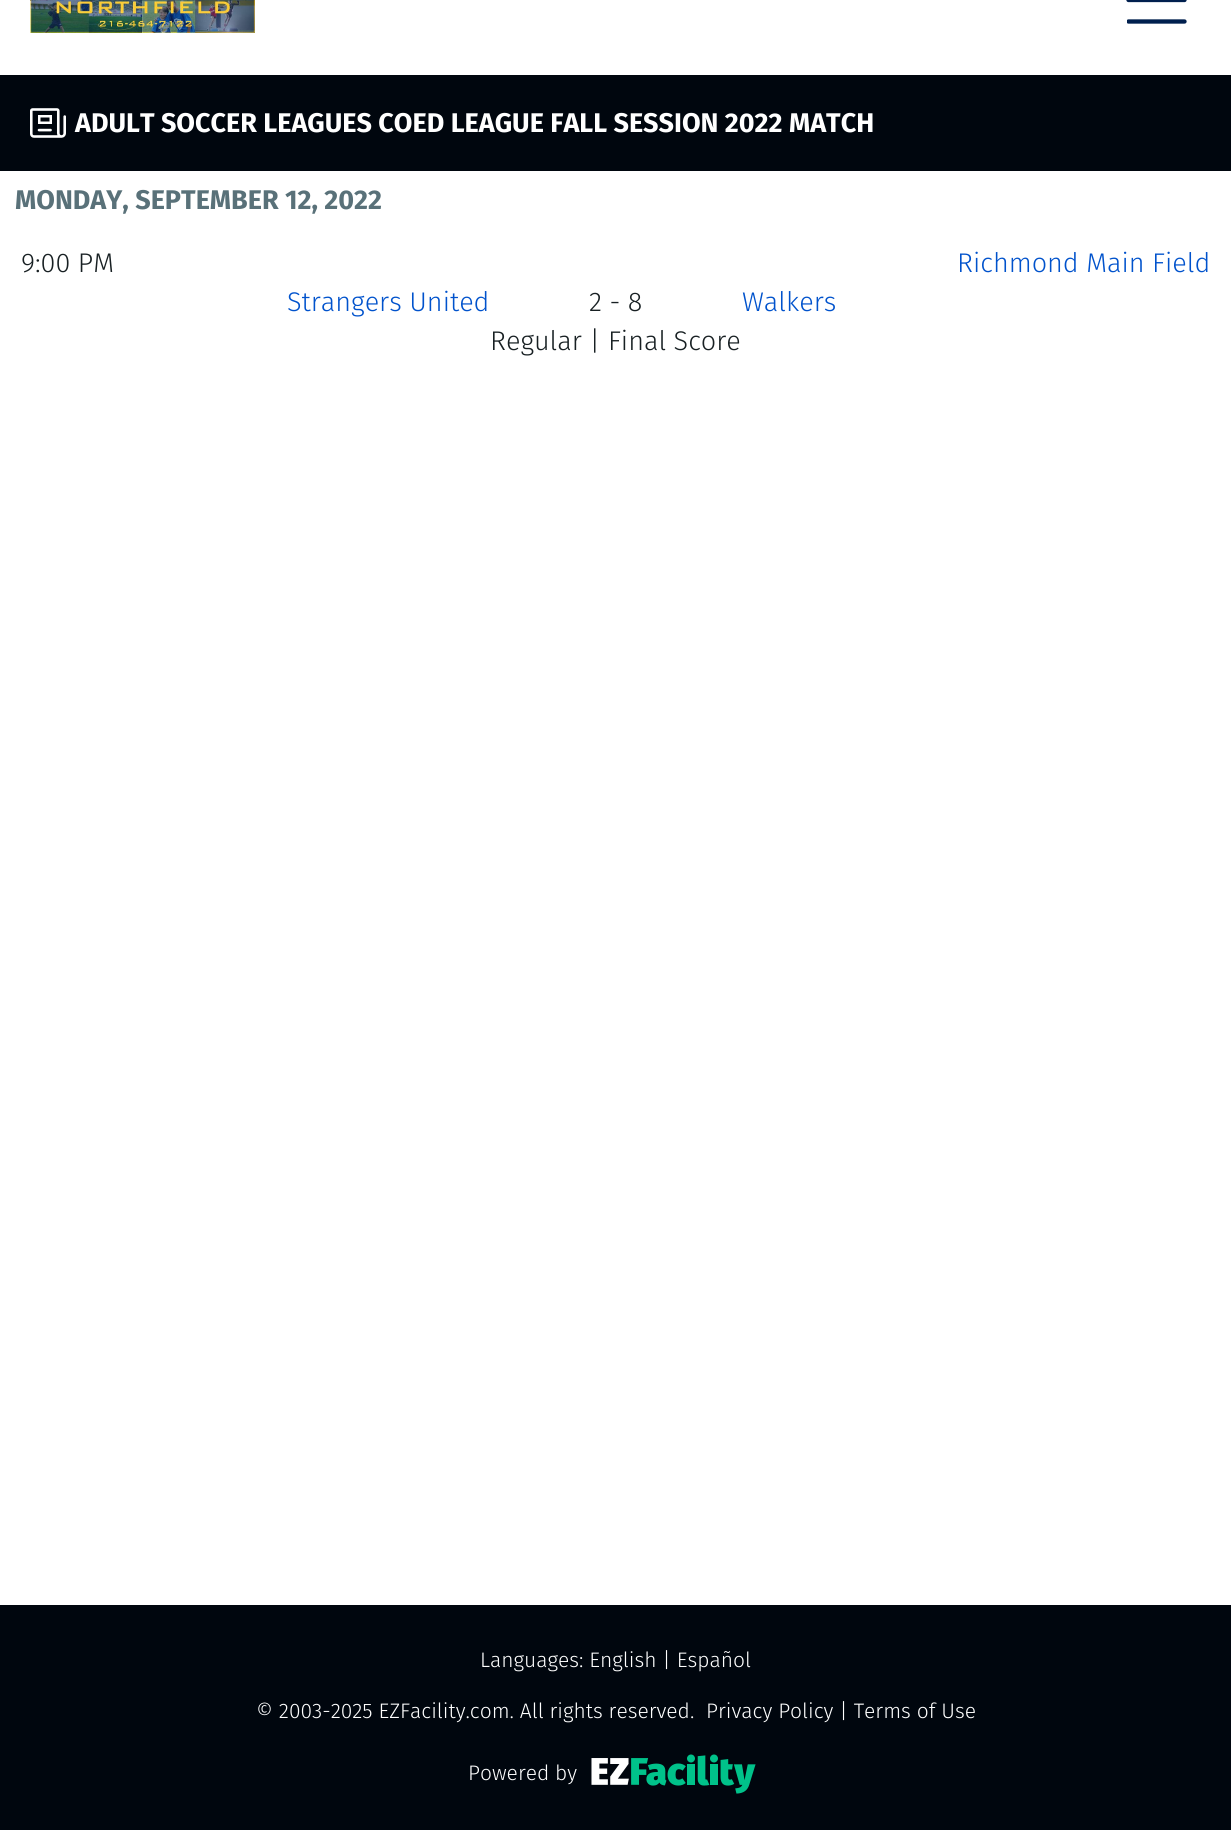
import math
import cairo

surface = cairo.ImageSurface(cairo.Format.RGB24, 1231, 1830)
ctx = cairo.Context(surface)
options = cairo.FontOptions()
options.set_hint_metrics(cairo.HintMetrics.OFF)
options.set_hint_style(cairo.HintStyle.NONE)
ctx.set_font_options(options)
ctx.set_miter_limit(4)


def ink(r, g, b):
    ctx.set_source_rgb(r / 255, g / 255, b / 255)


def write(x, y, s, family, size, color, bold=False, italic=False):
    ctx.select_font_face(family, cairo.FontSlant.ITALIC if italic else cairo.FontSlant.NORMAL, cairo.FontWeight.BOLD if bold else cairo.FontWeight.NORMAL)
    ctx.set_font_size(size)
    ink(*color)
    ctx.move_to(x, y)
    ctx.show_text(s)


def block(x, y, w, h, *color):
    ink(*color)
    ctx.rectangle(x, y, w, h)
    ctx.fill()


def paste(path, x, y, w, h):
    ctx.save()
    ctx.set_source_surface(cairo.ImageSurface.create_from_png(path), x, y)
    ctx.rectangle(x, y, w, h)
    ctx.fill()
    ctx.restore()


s1 = dict(family="Fira Sans", size=27, color=(255, 255, 255), bold=True)
s2 = dict(family="Fira Sans", size=27, color=(89, 113, 121), bold=True)
s3 = dict(family="Fira Sans Light", size=27, color=(24, 32, 35))
s4 = dict(family="Fira Sans Light", size=27, color=(0, 82, 204))
s5 = dict(family="Fira Sans Light", size=21, color=(255, 255, 255))

ink(255, 255, 255)
ctx.paint()
paste("pic1.png", 30, 0, 225, 33)
ctx.new_path()
ctx.move_to(1184.5, 0)
ctx.line_to(1128.5, 0)
ink(0, 31, 78)
ctx.set_line_width(4.3)
ctx.set_line_cap(cairo.LineCap.ROUND)
ctx.set_line_join(cairo.LineJoin.ROUND)
ctx.stroke()
ctx.save()
ctx.rectangle(1127, 0, 60, 30)
ctx.clip()
ctx.new_path()
ctx.move_to(1184.5, 21.5)
ctx.line_to(1128.5, 21.5)
ctx.stroke()
ctx.restore()
block(0, 75, 1231, 96, 0, 6, 14)
paste("pic2.png", 30, 108, 36, 30)
write(75, 132, "ADULT SOCCER LEAGUES COED LEAGUE FALL SESSION 2022 MATCH", **s1)
write(15, 209, "MONDAY, SEPTEMBER 12, 2022", **s2)
write(21, 272, "9:00 PM", **s3)
write(957, 272, "Richmond Main Field", **s4)
write(287, 311, "Strangers United", **s4)
write(589, 311, "2 - 8", **s3)
write(742, 311, "Walkers", **s4)
write(490, 350, "Regular | Final Score", **s3)
block(0, 1605, 1231, 225, 0, 6, 14)
write(480, 1667, "Languages: English | Español", **s5)
write(256, 1718, "© 2003-2025 EZFacility.com. All rights reserved.", **s5)
write(706, 1718, "Privacy Policy | Terms of Use", **s5)
write(468, 1780, "Powered by", **s5)
paste("pic3.png", 591, 1754, 165, 40)
surface.write_to_png("screenshot.png")
